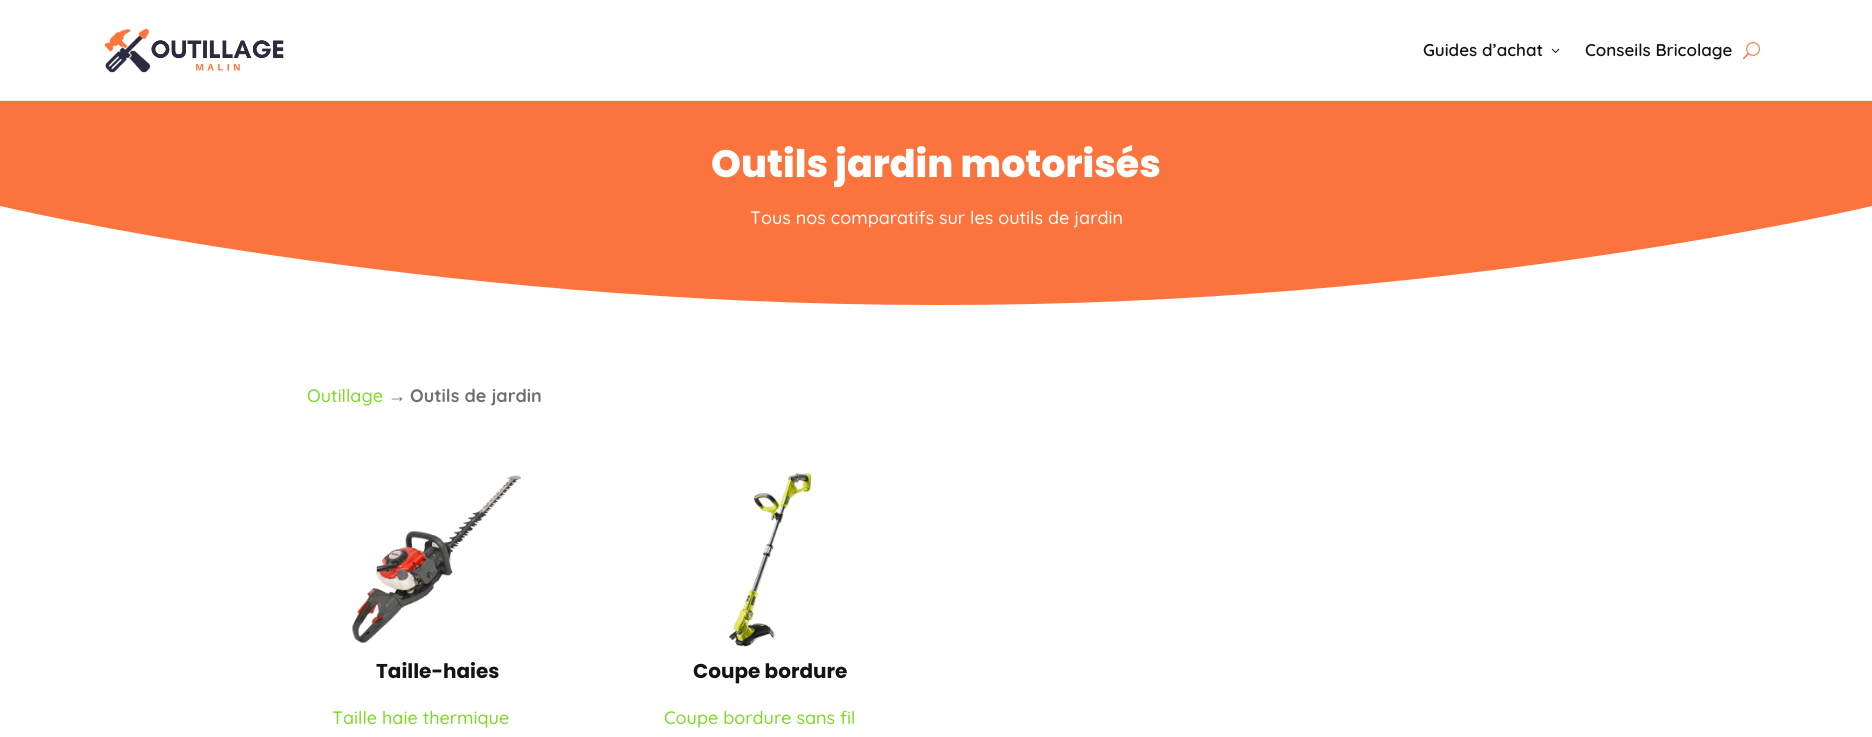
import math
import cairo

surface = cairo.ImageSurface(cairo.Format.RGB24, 1872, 737)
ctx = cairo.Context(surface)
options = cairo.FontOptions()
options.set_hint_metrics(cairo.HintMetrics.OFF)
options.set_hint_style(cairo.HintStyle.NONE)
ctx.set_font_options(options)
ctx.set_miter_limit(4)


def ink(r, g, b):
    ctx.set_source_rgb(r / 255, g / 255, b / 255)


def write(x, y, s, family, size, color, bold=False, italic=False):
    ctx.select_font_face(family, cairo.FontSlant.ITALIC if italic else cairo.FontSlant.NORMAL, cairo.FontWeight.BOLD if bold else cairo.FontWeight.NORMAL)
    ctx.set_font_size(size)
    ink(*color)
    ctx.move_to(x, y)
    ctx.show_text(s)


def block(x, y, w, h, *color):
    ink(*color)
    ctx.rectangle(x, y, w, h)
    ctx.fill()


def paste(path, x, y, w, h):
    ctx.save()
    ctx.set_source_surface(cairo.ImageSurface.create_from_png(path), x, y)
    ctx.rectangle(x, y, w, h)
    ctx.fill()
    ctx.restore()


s1 = dict(family="Quicksand SemiBold", size=17, color=(20, 20, 20))
s2 = dict(family="Poppins ExtraBold", size=38, color=(255, 255, 255))
s3 = dict(family="Quicksand Medium", size=18, color=(255, 255, 255))
s4 = dict(family="Quicksand Medium", size=18, color=(124, 218, 36))
s5 = dict(family="Liberation Sans", size=18, color=(112, 112, 112))
s6 = dict(family="Quicksand", size=18, color=(112, 112, 112), bold=True)
s7 = dict(family="Poppins", size=20, color=(20, 20, 20), bold=True)

ink(255, 255, 255)
ctx.paint()
block(0, 100, 1872, 1, 239, 239, 239)
paste("pic1.png", 104, 28, 180, 45)
write(1423, 56, "Guides d’achat", **s1)
paste("pic2.png", 1551, 48, 9, 5)
write(1585, 56, "Conseils Bricolage", **s1)
paste("pic3.png", 1743, 42, 17, 18)
block(0, 101, 1872, 204, 251, 116, 62)
write(711, 177, "Outils jardin motorisés", **s2)
ctx.new_path()
ctx.move_to(1872, 306)
ctx.line_to(1872, 206)
ctx.curve_to(1872, 206, 1453, 306, 936, 305)
ctx.curve_to(419, 305, 0, 206, 0, 206)
ctx.line_to(0, 306)
ctx.close_path()
ctx.fill()
write(750, 224, "Tous nos comparatifs sur les outils de jardin", **s3)
write(307, 402, "Outillage", **s4)
write(388, 402, "→", **s5)
write(410, 402, "Outils de jardin", **s6)
paste("pic4.png", 352, 475, 169, 168)
write(376, 678, "Taille-haies", **s7)
write(332, 724, "Taille haie thermique", **s4)
paste("pic5.png", 729, 472, 82, 175)
write(693, 678, "Coupe bordure", **s7)
write(664, 724, "Coupe bordure sans fil", **s4)
surface.write_to_png("screenshot.png")
